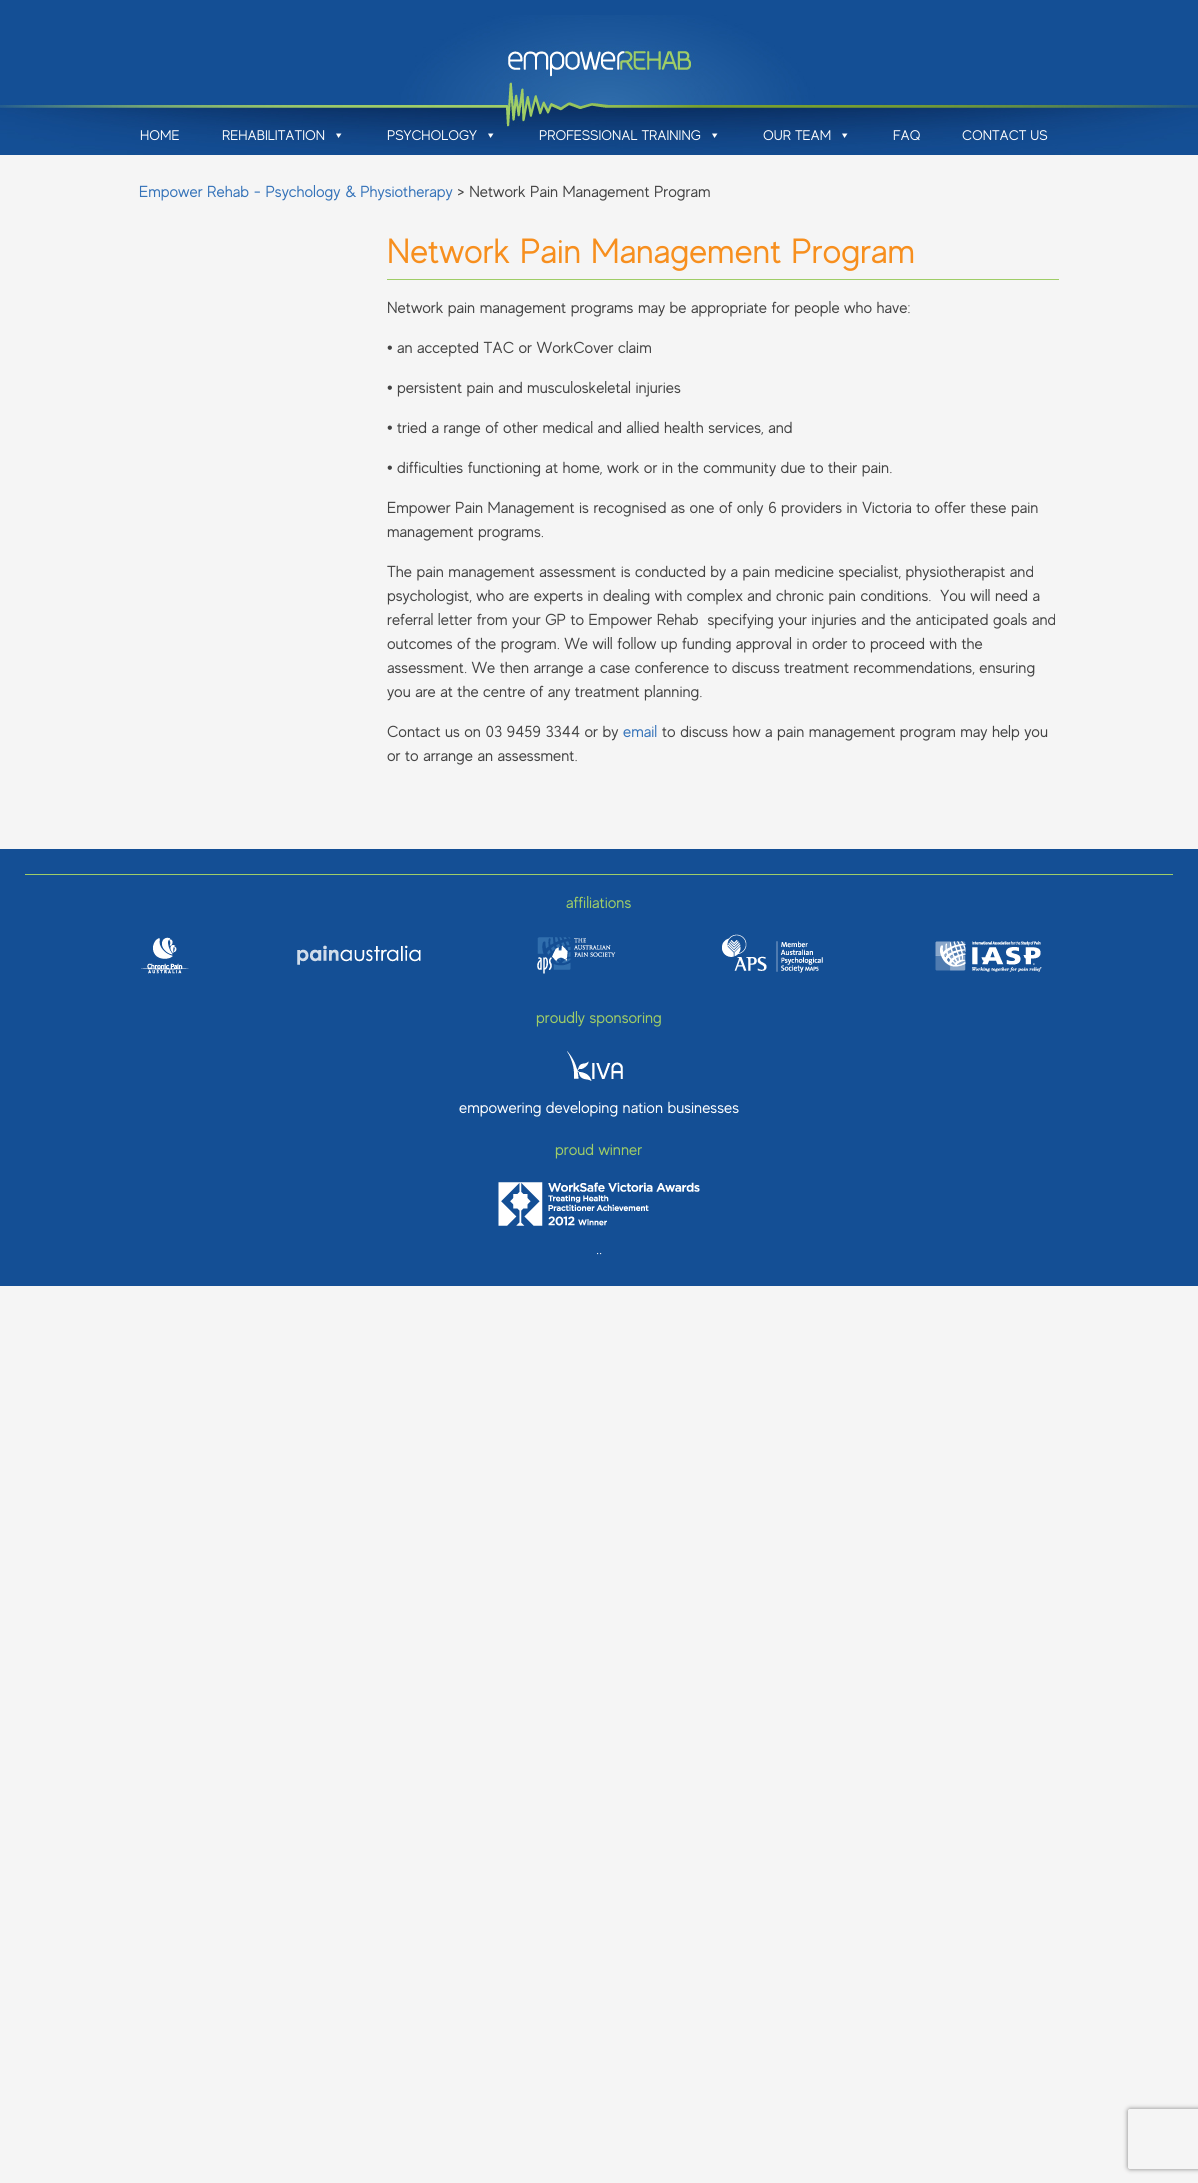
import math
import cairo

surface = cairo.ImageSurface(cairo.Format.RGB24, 1198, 2183)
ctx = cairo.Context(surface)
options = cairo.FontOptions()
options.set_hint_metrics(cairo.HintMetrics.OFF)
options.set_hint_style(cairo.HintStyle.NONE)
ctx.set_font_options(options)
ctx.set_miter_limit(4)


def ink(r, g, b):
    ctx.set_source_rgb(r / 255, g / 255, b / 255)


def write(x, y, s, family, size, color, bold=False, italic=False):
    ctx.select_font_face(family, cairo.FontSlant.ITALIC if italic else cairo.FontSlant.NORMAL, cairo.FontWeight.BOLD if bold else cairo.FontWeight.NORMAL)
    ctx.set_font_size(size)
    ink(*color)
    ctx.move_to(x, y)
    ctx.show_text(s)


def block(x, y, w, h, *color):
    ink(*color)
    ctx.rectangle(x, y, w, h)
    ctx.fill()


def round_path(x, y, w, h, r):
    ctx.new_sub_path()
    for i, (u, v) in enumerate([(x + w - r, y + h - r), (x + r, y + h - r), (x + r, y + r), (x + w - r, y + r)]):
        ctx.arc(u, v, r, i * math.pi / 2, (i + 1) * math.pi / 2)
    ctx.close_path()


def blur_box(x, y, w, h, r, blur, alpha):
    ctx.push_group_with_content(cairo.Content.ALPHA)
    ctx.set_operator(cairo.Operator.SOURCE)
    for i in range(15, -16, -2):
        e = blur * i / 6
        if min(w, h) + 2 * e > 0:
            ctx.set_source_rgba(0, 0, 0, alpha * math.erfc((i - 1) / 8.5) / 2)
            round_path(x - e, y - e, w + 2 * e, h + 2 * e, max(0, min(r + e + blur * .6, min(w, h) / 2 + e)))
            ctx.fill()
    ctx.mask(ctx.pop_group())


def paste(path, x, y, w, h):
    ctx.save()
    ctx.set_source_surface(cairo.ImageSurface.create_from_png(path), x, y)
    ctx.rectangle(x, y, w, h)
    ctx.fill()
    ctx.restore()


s1 = dict(family="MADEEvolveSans", size=14, color=(255, 255, 255))
s2 = dict(family="MADEEvolveSans", size=16, color=(53, 115, 185))
s3 = dict(family="MADEEvolveSans", size=16, color=(68, 68, 68))
s4 = dict(family="MADEEvolveSans", size=35, color=(247, 143, 30))
s5 = dict(family="Liberation Sans", size=16, color=(68, 68, 68))
s6 = dict(family="MADEEvolveSans", size=16, color=(159, 205, 103))
s7 = dict(family="MADEEvolveSans", size=16, color=(255, 255, 255))

ink(245, 245, 245)
ctx.paint()
block(0, 0, 1198, 15, 20, 79, 149)
paste("pic1.png", 0, 15, 1198, 140)
write(140, 140, "HOME", **s1)
write(222, 140, "REHABILITATION", **s1)
ctx.new_path()
ctx.move_to(341.5, 133.5)
ctx.line_to(338.5, 138)
ctx.line_to(336, 133.5)
ctx.close_path()
ctx.fill()
write(387, 140, "PSYCHOLOGY", **s1)
ctx.new_path()
ctx.move_to(493.5, 133.5)
ctx.line_to(490.5, 138)
ctx.line_to(488, 133.5)
ctx.close_path()
ctx.fill()
write(539, 140, "PROFESSIONAL TRAINING", **s1)
ctx.new_path()
ctx.move_to(717.5, 133.5)
ctx.line_to(714.5, 138)
ctx.line_to(712, 133.5)
ctx.close_path()
ctx.fill()
write(763, 140, "OUR TEAM", **s1)
ctx.new_path()
ctx.move_to(847.5, 133.5)
ctx.line_to(844.5, 138)
ctx.line_to(842, 133.5)
ctx.close_path()
ctx.fill()
write(893, 140, "FAQ", **s1)
write(962, 140, "CONTACT US", **s1)
write(139, 197, "Empower Rehab - Psychology & Physiotherapy", **s2)
write(457, 197, "> Network Pain Management Program", **s3)
block(387, 279, 672, 1, 159, 205, 103)
write(387, 263, "Network Pain Management Program", **s4)
write(387, 313, "Network pain management programs may be appropriate for people who have:", **s3)
write(387, 353, "•", **s5)
write(397, 353, "an accepted TAC or WorkCover claim", **s3)
write(387, 393, "•", **s5)
write(397, 393, "persistent pain and musculoskeletal injuries", **s3)
write(387, 433, "•", **s5)
write(397, 433, "tried a range of other medical and allied health services, and", **s3)
write(387, 473, "•", **s5)
write(397, 473, "difficulties functioning at home, work or in the community due to their pain.", **s3)
write(387, 513, "Empower Pain Management is recognised as one of only 6 providers in Victoria to offer these pain", **s3)
write(387, 537, "management programs.", **s3)
write(387, 577, "The pain management assessment is conducted by a pain medicine specialist, physiotherapist and", **s3)
write(387, 601, "psychologist, who are experts in dealing with complex and chronic pain conditions.  You will need a", **s3)
write(387, 625, "referral letter from your GP to Empower Rehab  specifying your injuries and the anticipated goals and", **s3)
write(387, 649, "outcomes of the program. We will follow up funding approval in order to proceed with the", **s3)
write(387, 673, "assessment. We then arrange a case conference to discuss treatment recommendations, ensuring", **s3)
write(387, 697, "you are at the centre of any treatment planning.", **s3)
write(387, 737, "Contact us on 03 9459 3344 or by", **s3)
write(623, 737, "email", **s2)
write(662, 737, "to discuss how a pain management program may help you", **s3)
write(387, 761, "or to arrange an assessment.", **s3)
block(0, 849, 1198, 437, 20, 79, 149)
block(25, 874, 1148, 1, 159, 205, 103)
write(566, 908, "affiliations", **s6)
paste("pic2.png", 141, 937, 48, 37)
paste("pic3.png", 297, 945, 124, 20)
paste("pic4.png", 537, 937, 79, 37)
paste("pic5.png", 722, 934, 101, 39)
paste("pic6.png", 935, 941, 107, 31)
write(536, 1023, "proudly sponsoring", **s6)
paste("pic7.png", 567, 1051, 56, 30)
write(459, 1113, "empowering developing nation businesses", **s7)
write(555, 1155, "proud winner", **s6)
paste("pic8.png", 498, 1182, 202, 44)
write(596, 1254, "..", **s7)
ctx.save()
ctx.set_fill_rule(cairo.FillRule.EVEN_ODD)
ctx.new_path()
ctx.move_to(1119, 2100)
ctx.line_to(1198, 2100)
ctx.line_to(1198, 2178)
ctx.line_to(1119, 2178)
ctx.close_path()
ctx.move_to(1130, 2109)
ctx.line_to(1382, 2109)
ctx.curve_to(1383, 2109, 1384, 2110, 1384, 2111)
ctx.line_to(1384, 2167)
ctx.curve_to(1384, 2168, 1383, 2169, 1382, 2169)
ctx.line_to(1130, 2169)
ctx.curve_to(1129, 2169, 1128, 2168, 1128, 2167)
ctx.line_to(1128, 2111)
ctx.curve_to(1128, 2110, 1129, 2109, 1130, 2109)
ctx.close_path()
ctx.clip()
ink(128, 128, 128)
blur_box(1128, 2109, 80, 60, 2, 2.5, 1)
ctx.restore()
surface.write_to_png("screenshot.png")
